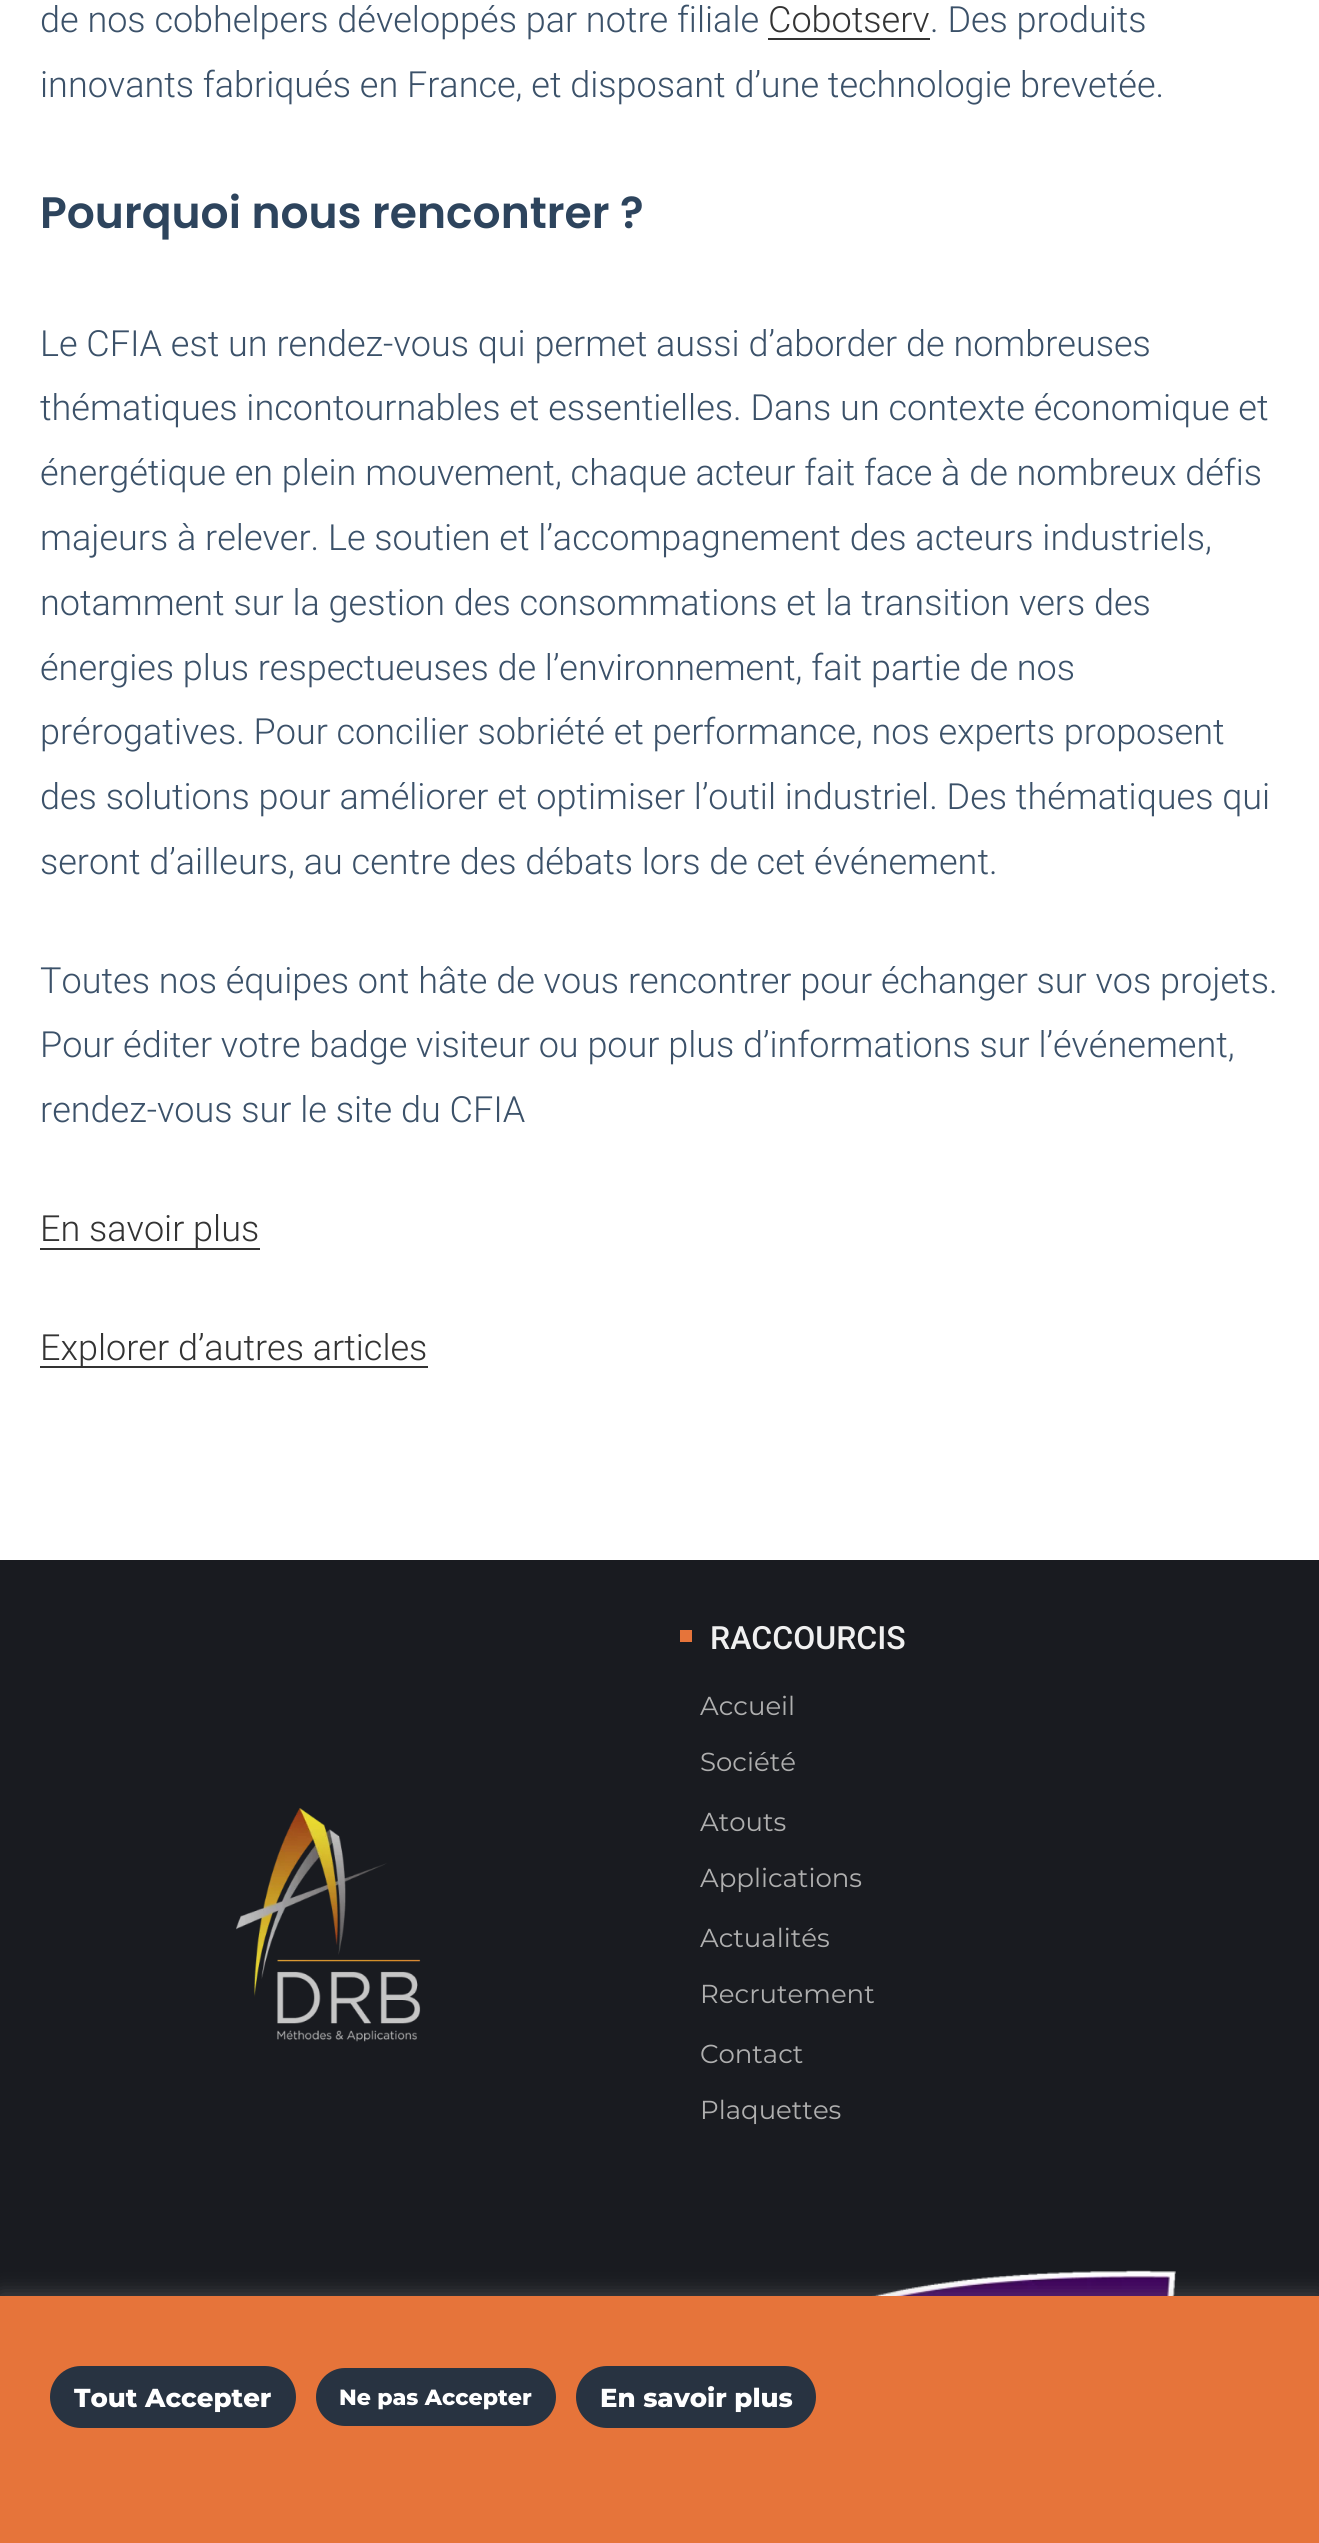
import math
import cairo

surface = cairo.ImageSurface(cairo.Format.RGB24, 1319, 2543)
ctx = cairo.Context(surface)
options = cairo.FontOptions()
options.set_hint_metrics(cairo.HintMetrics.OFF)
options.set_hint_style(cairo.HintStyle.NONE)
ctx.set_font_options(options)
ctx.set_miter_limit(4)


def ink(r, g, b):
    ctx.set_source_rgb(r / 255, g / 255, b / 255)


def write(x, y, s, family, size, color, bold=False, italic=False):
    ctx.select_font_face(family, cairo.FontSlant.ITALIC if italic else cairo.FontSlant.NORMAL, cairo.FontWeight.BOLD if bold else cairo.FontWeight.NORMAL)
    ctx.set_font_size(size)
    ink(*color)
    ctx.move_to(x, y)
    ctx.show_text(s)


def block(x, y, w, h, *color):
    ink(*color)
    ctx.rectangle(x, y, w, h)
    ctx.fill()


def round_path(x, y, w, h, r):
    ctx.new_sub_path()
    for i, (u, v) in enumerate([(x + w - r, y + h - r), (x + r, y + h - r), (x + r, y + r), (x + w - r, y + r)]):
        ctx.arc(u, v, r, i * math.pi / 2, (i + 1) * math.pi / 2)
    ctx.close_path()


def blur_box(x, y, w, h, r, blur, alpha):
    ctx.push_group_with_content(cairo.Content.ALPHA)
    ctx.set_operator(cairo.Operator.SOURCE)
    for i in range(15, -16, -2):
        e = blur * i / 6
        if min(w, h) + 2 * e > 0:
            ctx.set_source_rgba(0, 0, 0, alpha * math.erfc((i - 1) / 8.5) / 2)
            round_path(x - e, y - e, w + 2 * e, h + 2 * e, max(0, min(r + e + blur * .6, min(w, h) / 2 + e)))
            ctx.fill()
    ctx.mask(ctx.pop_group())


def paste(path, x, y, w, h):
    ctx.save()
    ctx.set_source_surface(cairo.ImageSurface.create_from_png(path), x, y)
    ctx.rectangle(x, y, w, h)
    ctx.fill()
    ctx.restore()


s1 = dict(family="Roboto Light", size=36, color=(59, 81, 105))
s2 = dict(family="Roboto Light", size=36, color=(51, 51, 51))
s3 = dict(family="Poppins SemiBold", size=44, color=(45, 68, 93))
s4 = dict(family="Roboto Medium", size=32, color=(240, 240, 240))
s5 = dict(family="Montserrat", size=26, color=(175, 175, 175))
s6 = dict(family="Montserrat ExtraBold", size=26, color=(255, 255, 255))
s7 = dict(family="Montserrat ExtraBold", size=22, color=(255, 255, 255))

ink(255, 255, 255)
ctx.paint()
write(40, 32, "de nos cobhelpers développés par notre filiale", **s1)
write(768, 32, "Cobotserv", **s2)
block(768, 38, 162, 2, 51, 51, 51)
write(930, 32, ". Des produits", **s1)
write(40, 97, "innovants fabriqués en France, et disposant d’une technologie brevetée.", **s1)
write(40, 228, "Pourquoi nous rencontrer ?", **s3)
write(40, 356, "Le CFIA est un rendez-vous qui permet aussi d’aborder de nombreuses", **s1)
write(40, 420, "thématiques incontournables et essentielles. Dans un contexte économique et", **s1)
write(40, 485, "énergétique en plein mouvement, chaque acteur fait face à de nombreux défis", **s1)
write(40, 550, "majeurs à relever. Le soutien et l’accompagnement des acteurs industriels,", **s1)
write(40, 615, "notamment sur la gestion des consommations et la transition vers des", **s1)
write(40, 680, "énergies plus respectueuses de l’environnement, fait partie de nos", **s1)
write(40, 744, "prérogatives. Pour concilier sobriété et performance, nos experts proposent", **s1)
write(40, 809, "des solutions pour améliorer et optimiser l’outil industriel. Des thématiques qui", **s1)
write(40, 874, "seront d’ailleurs, au centre des débats lors de cet événement.", **s1)
write(40, 993, "Toutes nos équipes ont hâte de vous rencontrer pour échanger sur vos projets.", **s1)
write(40, 1057, "Pour éditer votre badge visiteur ou pour plus d’informations sur l’événement,", **s1)
write(40, 1122, "rendez-vous sur le site du CFIA", **s1)
block(40, 1248, 220, 2, 51, 51, 51)
write(40, 1241, "En savoir plus", **s2)
block(40, 1366, 388, 2, 51, 51, 51)
write(40, 1360, "Explorer d’autres articles", **s2)
block(0, 1560, 1319, 736, 25, 27, 32)
paste("pic1.png", 236, 1808, 185, 234)
block(680, 1630, 12, 12, 230, 116, 58)
write(710, 1649, "RACCOURCIS", **s4)
write(700, 1715, "Accueil", **s5)
write(700, 1771, "Société", **s5)
write(700, 1831, "Atouts", **s5)
write(700, 1887, "Applications", **s5)
write(700, 1947, "Actualités", **s5)
write(700, 2003, "Recrutement", **s5)
write(700, 2063, "Contact", **s5)
write(700, 2119, "Plaquettes", **s5)
paste("pic2.png", 872, 2270, 304, 26)
ink(172, 171, 171)
blur_box(0, 2294, 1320, 248, 0, 10, 0.3)
block(0, 2296, 1319, 247, 230, 116, 58)
ink(40, 51, 65)
round_path(50, 2366, 246, 62, 31)
ctx.fill()
write(74, 2407, "Tout Accepter", **s6)
ink(40, 51, 65)
round_path(316, 2368, 240, 58, 29)
ctx.fill()
write(339, 2405, "Ne pas Accepter", **s7)
ink(40, 51, 65)
round_path(576, 2366, 240, 62, 31)
ctx.fill()
write(600, 2407, "En savoir plus", **s6)
surface.write_to_png("screenshot.png")
